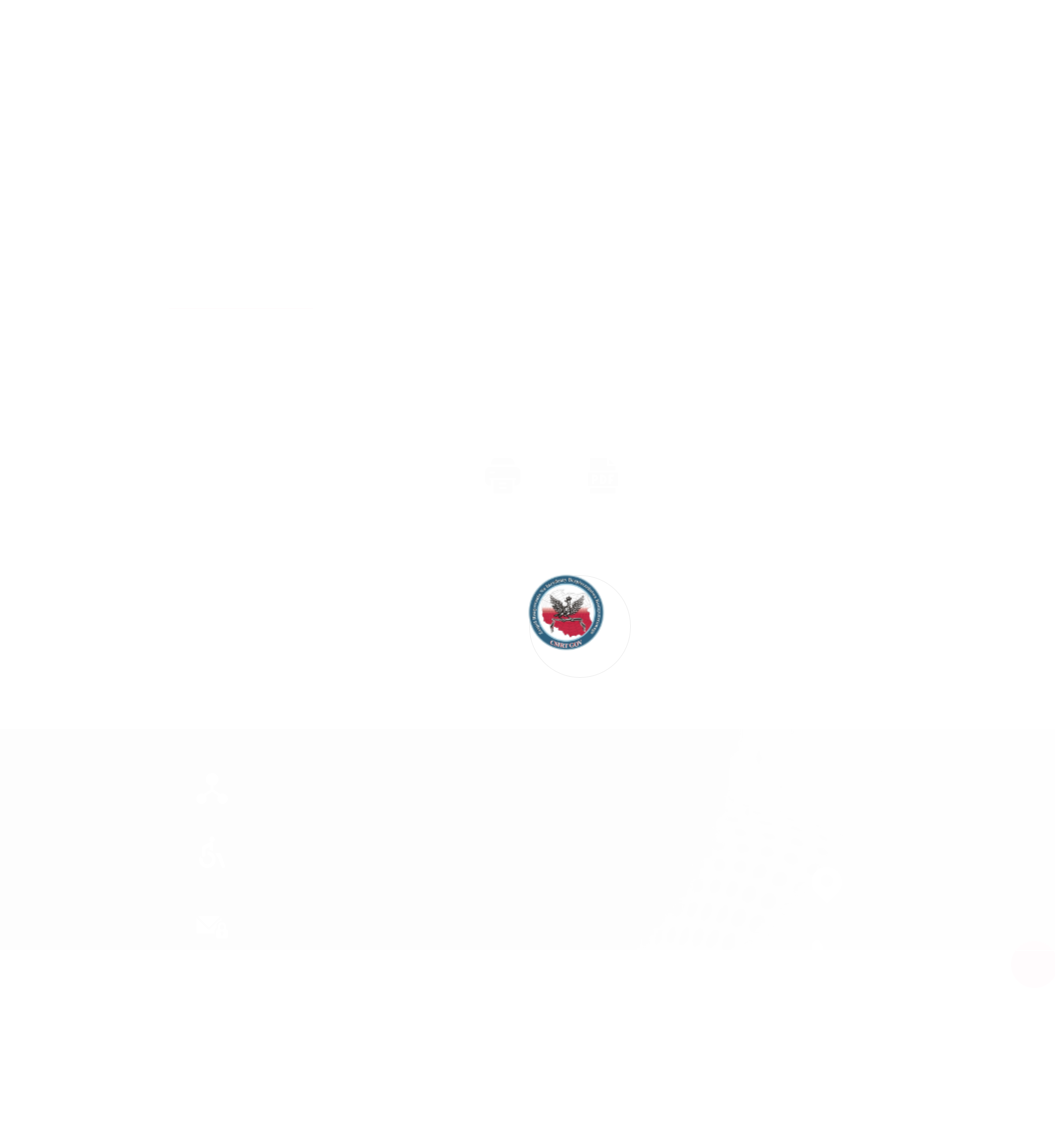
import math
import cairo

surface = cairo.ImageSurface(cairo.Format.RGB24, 1055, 1147)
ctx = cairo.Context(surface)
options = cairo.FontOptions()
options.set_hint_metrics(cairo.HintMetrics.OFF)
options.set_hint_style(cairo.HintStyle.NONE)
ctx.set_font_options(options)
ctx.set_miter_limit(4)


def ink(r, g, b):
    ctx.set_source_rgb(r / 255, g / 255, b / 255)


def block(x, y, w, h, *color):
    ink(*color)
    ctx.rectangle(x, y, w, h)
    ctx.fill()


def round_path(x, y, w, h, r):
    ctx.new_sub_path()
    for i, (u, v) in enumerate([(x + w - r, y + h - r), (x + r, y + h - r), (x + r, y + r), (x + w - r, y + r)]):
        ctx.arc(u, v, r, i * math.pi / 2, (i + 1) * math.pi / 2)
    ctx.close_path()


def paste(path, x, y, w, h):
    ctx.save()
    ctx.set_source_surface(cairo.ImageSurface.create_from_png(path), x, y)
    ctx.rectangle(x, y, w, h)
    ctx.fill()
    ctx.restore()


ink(255, 255, 255)
ctx.paint()
block(169, 308, 144, 1, 255, 252, 253)
paste("pic1.png", 485, 457, 36, 37)
paste("pic2.png", 587, 457, 31, 37)
paste("pic3.png", 0, 729, 1055, 221)
paste("pic4.png", 196, 773, 32, 31)
paste("pic5.png", 199, 836, 26, 32)
paste("pic6.png", 196, 915, 32, 24)
paste("pic7.png", 811, 867, 31, 36)
paste("pic8.png", 811, 939, 13, 11)
round_path(529.5, 575.5, 101, 102, 50.5)
ink(243, 243, 243)
ctx.set_line_width(1)
ctx.stroke()
paste("pic9.png", 528, 574, 77, 77)
ink(255, 252, 253)
ctx.arc(1034.5, 964.5, 23.5, 0, 2 * math.pi)
ctx.fill()
block(1016, 950, 39, 1, 255, 255, 255)
surface.write_to_png("screenshot.png")
